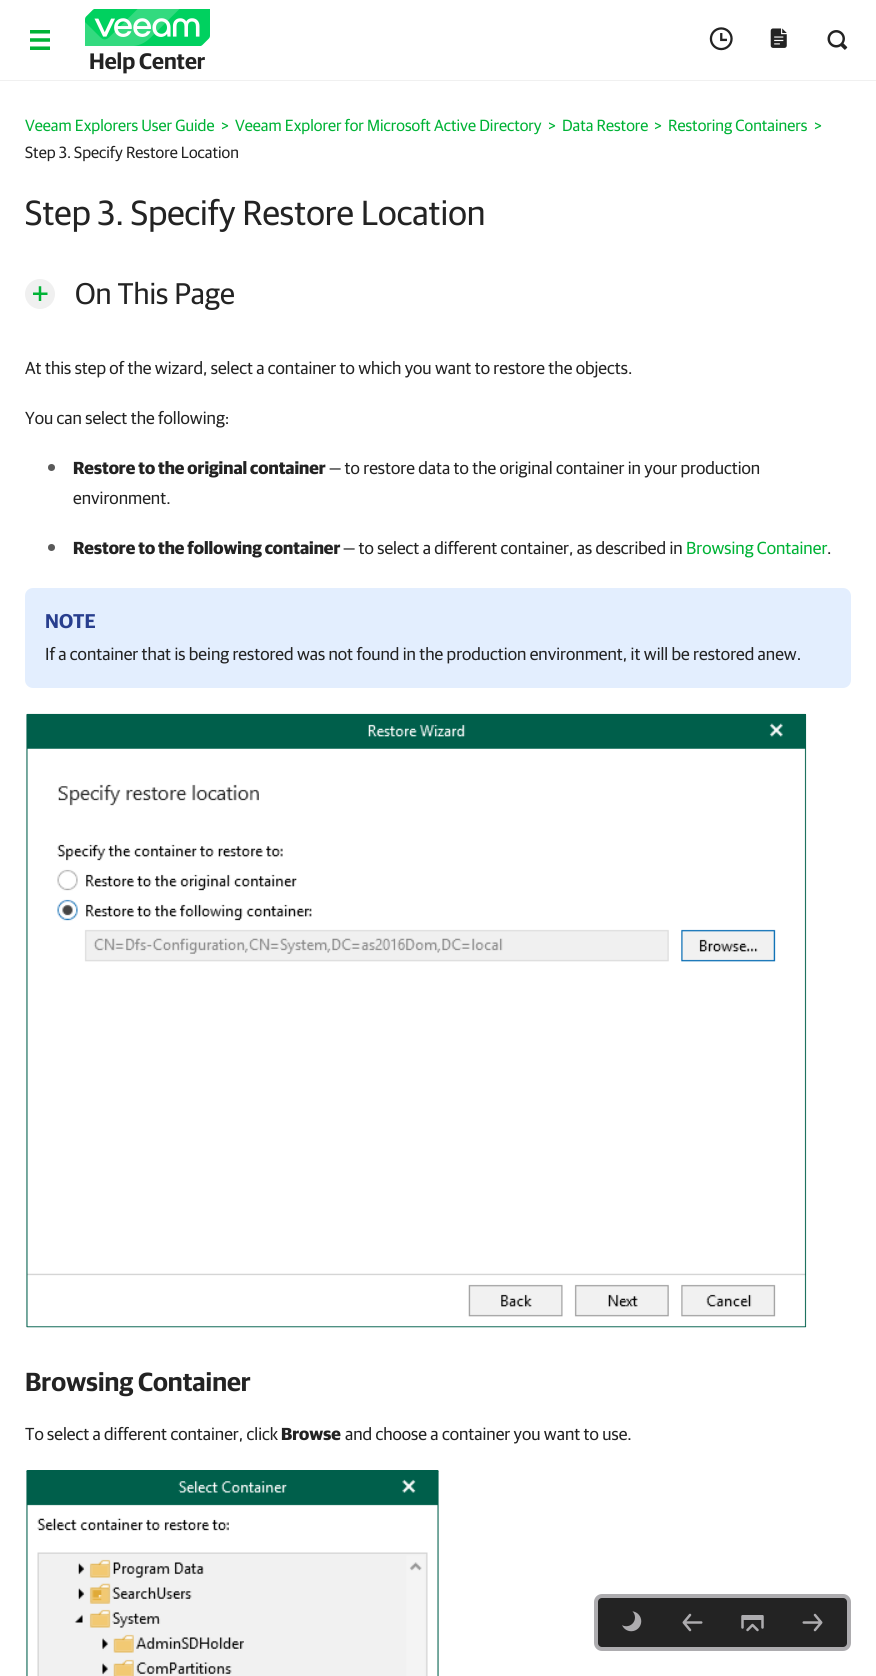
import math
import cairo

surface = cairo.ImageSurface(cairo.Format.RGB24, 876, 1676)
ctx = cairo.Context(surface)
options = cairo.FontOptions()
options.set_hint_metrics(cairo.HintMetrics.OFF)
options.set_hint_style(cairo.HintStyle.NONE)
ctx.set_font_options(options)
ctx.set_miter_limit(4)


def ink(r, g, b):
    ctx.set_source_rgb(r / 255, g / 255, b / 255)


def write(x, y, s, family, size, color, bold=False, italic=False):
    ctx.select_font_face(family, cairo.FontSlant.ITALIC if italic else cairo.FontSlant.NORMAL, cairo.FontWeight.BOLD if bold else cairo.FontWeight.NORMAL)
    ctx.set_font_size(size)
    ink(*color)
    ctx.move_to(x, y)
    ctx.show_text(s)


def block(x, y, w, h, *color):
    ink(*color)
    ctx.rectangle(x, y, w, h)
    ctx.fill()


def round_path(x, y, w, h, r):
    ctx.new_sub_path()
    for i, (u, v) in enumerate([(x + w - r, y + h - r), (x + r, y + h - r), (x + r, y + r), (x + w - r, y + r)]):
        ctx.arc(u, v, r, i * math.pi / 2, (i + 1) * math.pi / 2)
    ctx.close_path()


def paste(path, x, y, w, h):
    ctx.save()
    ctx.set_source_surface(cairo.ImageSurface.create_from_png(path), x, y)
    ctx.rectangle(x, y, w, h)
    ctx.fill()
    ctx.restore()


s1 = dict(family="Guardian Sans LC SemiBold", size=22.5, color=(35, 35, 35))
s2 = dict(family="Guardian Sans LC", size=16.25, color=(0, 179, 54))
s3 = dict(family="Guardian Sans LC", size=16.25, color=(35, 35, 35))
s4 = dict(family="Guardian Sans LC", size=35, color=(35, 35, 35))
s5 = dict(family="Guardian Sans LC", size=30, color=(35, 35, 35))
s6 = dict(family="Guardian Sans LC", size=17.5, color=(35, 35, 35))
s7 = dict(family="Guardian Sans LC", size=17.5, color=(35, 35, 35), bold=True)
s8 = dict(family="Guardian Sans LC", size=17.5, color=(0, 179, 54))
s9 = dict(family="Guardian Sans LC SemiBold", size=20, color=(40, 62, 142))
s10 = dict(family="Guardian Sans LC SemiBold", size=26.25, color=(35, 35, 35))

ink(255, 255, 255)
ctx.paint()
block(0, 80, 876, 1, 240, 240, 240)
paste("pic1.png", 709, 27, 24, 24)
paste("pic2.png", 770, 28, 17, 20)
paste("pic3.png", 827, 30, 21, 20)
paste("pic4.png", 30, 30, 20, 20)
paste("pic5.png", 85, 9, 125, 37)
write(89, 69, "Help Center", **s1)
write(25, 131, "Veeam Explorers User Guide", **s2)
write(221, 131, ">", **s2)
write(235, 131, "Veeam Explorer for Microsoft Active Directory", **s2)
write(548, 131, ">", **s2)
write(562, 131, "Data Restore", **s2)
write(654, 131, ">", **s2)
write(668, 131, "Restoring Containers", **s2)
write(814, 131, ">", **s2)
write(25, 158, "Step 3. Specify Restore Location", **s3)
write(25, 225, "Step 3. Specify Restore Location", **s4)
ink(240, 240, 240)
ctx.new_path()
ctx.arc(40, 294, 15, 0, 2 * math.pi)
ctx.fill()
paste("pic6.png", 33, 286, 15, 15)
write(75, 304, "On This Page", **s5)
write(25, 374, "At this step of the wizard, select a container to which you want to restore the objects.", **s6)
write(25, 424, "You can select the following:", **s6)
ink(90, 90, 90)
ctx.new_path()
ctx.arc(51.5, 467.5, 3.5, 0, 2 * math.pi)
ctx.fill()
write(73, 474, "Restore to the original container", **s7)
write(329, 474, "— to restore data to the original container in your production", **s6)
write(73, 504, "environment.", **s6)
ink(90, 90, 90)
ctx.new_path()
ctx.arc(51.5, 547.5, 3.5, 0, 2 * math.pi)
ctx.fill()
write(73, 554, "Restore to the following container", **s7)
write(343, 554, "— to select a different container, as described in", **s6)
write(686, 554, "Browsing Container", **s8)
write(827, 554, ".", **s6)
ink(227, 238, 254)
round_path(25, 588, 826, 100, 8)
ctx.fill()
write(45, 628, "NOTE", **s9)
write(45, 660, "If a container that is being restored was not found in the production environment, it will be restored anew.", **s6)
paste("pic7.png", 26, 713, 781, 615)
write(25, 1391, "Browsing Container", **s10)
write(25, 1440, "To select a different container, click", **s6)
write(281, 1440, "Browse", **s7)
write(345, 1440, "and choose a container you want to use.", **s6)
paste("pic8.png", 26, 1470, 413, 206)
round_path(596, 1596, 253, 53, 6)
ctx.fill_preserve()
ink(173, 172, 175)
ctx.set_line_width(4)
ctx.stroke()
paste("pic9.png", 622, 1611, 20, 21)
paste("pic10.png", 682, 1613, 21, 19)
paste("pic11.png", 741, 1615, 23, 17)
paste("pic12.png", 802, 1613, 21, 19)
surface.write_to_png("screenshot.png")
